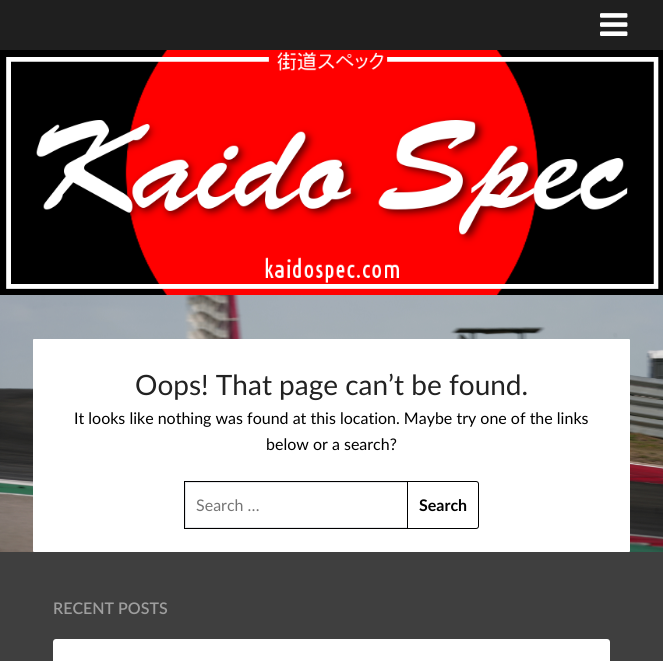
import math
import cairo

surface = cairo.ImageSurface(cairo.Format.RGB24, 663, 661)
ctx = cairo.Context(surface)
options = cairo.FontOptions()
options.set_hint_metrics(cairo.HintMetrics.OFF)
options.set_hint_style(cairo.HintStyle.NONE)
ctx.set_font_options(options)
ctx.set_miter_limit(4)


def ink(r, g, b):
    ctx.set_source_rgb(r / 255, g / 255, b / 255)


def write(x, y, s, family, size, color, bold=False, italic=False):
    ctx.select_font_face(family, cairo.FontSlant.ITALIC if italic else cairo.FontSlant.NORMAL, cairo.FontWeight.BOLD if bold else cairo.FontWeight.NORMAL)
    ctx.set_font_size(size)
    ink(*color)
    ctx.move_to(x, y)
    ctx.show_text(s)


def block(x, y, w, h, *color):
    ink(*color)
    ctx.rectangle(x, y, w, h)
    ctx.fill()


def round_path(x, y, w, h, r):
    ctx.new_sub_path()
    for i, (u, v) in enumerate([(x + w - r, y + h - r), (x + r, y + h - r), (x + r, y + r), (x + w - r, y + r)]):
        ctx.arc(u, v, r, i * math.pi / 2, (i + 1) * math.pi / 2)
    ctx.close_path()


def paste(path, x, y, w, h):
    ctx.save()
    ctx.set_source_surface(cairo.ImageSurface.create_from_png(path), x, y)
    ctx.rectangle(x, y, w, h)
    ctx.fill()
    ctx.restore()


s1 = dict(family="Lato", size=28, color=(34, 34, 34))
s2 = dict(family="Lato", size=16, color=(0, 0, 0))
s3 = dict(family="Lato", size=16, color=(117, 117, 117))
s4 = dict(family="Lato", size=16, color=(0, 0, 0), bold=True)
s5 = dict(family="Lato SemiBold", size=16, color=(158, 158, 158))

ink(63, 63, 63)
ctx.paint()
paste("pic1.png", 0, 295, 663, 257)
block(0, 0, 663, 50, 31, 31, 31)
paste("pic2.png", 600, 13, 28, 23)
paste("pic3.png", 0, 50, 663, 245)
ink(255, 255, 255)
round_path(33, 339, 597, 213, 1)
ctx.fill()
write(135, 395, "Oops! That page can’t be found.", **s1)
write(74, 424, "It looks like nothing was found at this location. Maybe try one of the links", **s2)
write(266, 450, "below or a search?", **s2)
block(184, 481, 224, 1, 0, 0, 0)
block(184, 528, 224, 1, 0, 0, 0)
block(184, 481, 1, 48, 0, 0, 0)
ctx.rectangle(185.5, 482.5, 222, 45)
ink(229, 230, 233)
ctx.set_line_width(1)
ctx.stroke()
write(196, 511, "Search …", **s3)
ctx.new_path()
ctx.move_to(407.5, 481.5)
ctx.line_to(476, 481.5)
ctx.curve_to(477.5, 481.5, 478.5, 482.5, 478.5, 484)
ctx.line_to(478.5, 526)
ctx.curve_to(478.5, 527.5, 477.5, 528.5, 476, 528.5)
ctx.line_to(407.5, 528.5)
ctx.close_path()
ink(0, 0, 0)
ctx.stroke()
write(419, 511, "Search", **s4)
write(53, 614, "RECENT POSTS", **s5)
ink(255, 255, 255)
round_path(53, 639, 557, 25, 3)
ctx.fill()
surface.write_to_png("screenshot.png")
